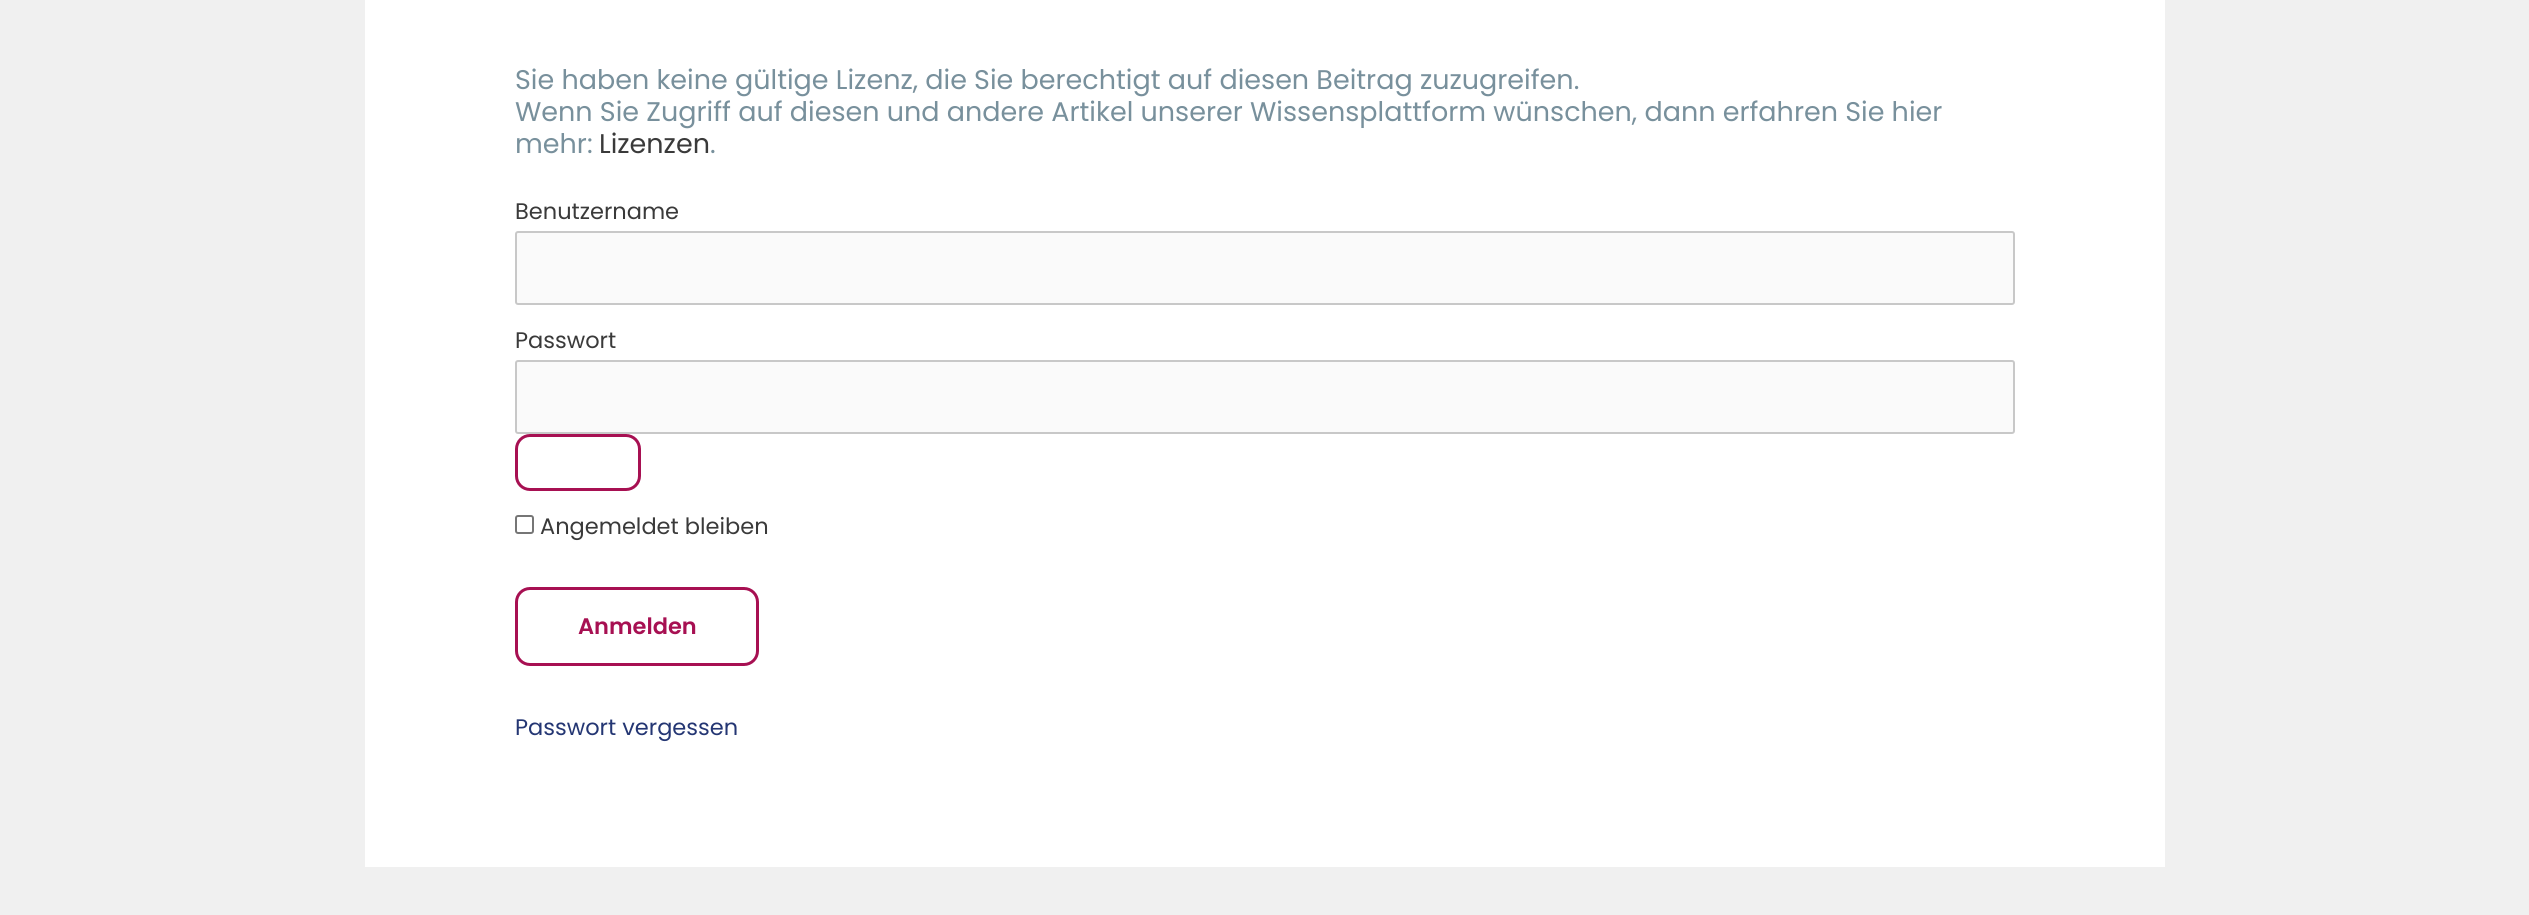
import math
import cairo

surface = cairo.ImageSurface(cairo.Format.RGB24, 2529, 915)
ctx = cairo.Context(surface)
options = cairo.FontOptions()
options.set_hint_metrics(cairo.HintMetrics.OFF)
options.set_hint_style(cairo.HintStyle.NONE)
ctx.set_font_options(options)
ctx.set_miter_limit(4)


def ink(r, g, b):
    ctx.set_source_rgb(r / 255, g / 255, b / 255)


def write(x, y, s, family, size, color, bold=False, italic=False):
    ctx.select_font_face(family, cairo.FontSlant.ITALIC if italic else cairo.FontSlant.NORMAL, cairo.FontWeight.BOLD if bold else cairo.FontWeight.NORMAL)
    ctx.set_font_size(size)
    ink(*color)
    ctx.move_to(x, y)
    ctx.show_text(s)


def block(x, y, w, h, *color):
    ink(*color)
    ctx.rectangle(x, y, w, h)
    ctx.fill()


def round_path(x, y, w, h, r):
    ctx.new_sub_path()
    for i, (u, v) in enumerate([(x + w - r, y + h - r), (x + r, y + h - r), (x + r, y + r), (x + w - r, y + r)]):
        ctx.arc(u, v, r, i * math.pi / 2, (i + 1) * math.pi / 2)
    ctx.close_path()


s1 = dict(family="Poppins", size=27, color=(120, 144, 156))
s2 = dict(family="Poppins", size=27, color=(58, 58, 58))
s3 = dict(family="Poppins", size=22.5, color=(58, 58, 58))
s4 = dict(family="Poppins SemiBold", size=22.5, color=(167, 16, 82))
s5 = dict(family="Poppins", size=22.5, color=(36, 54, 115))

ink(240, 240, 240)
ctx.paint()
block(365, 0, 1800, 867, 255, 255, 255)
write(515, 89, "Sie haben keine gültige Lizenz, die Sie berechtigt auf diesen Beitrag zuzugreifen.", **s1)
write(515, 121, "Wenn Sie Zugriff auf diesen und andere Artikel unserer Wissensplattform wünschen, dann erfahren Sie hier", **s1)
write(515, 153, "mehr:", **s1)
write(599, 153, "Lizenzen", **s2)
write(710, 153, ".", **s1)
write(515, 219, "Benutzername", **s3)
ink(250, 250, 250)
round_path(516, 232, 1498, 72, 2)
ctx.fill_preserve()
ink(200, 200, 200)
ctx.stroke()
write(515, 348, "Passwort", **s3)
ink(250, 250, 250)
round_path(516, 361, 1498, 72, 2)
ctx.fill_preserve()
ink(200, 200, 200)
ctx.stroke()
round_path(516.5, 435.5, 123, 54, 13.5)
ink(167, 16, 82)
ctx.set_line_width(3)
ctx.stroke()
round_path(516, 516, 17, 17, 2)
ink(118, 118, 118)
ctx.set_line_width(2)
ctx.stroke()
write(540, 534, "Angemeldet bleiben", **s3)
round_path(516.5, 588.5, 241, 76, 13.5)
ink(167, 16, 82)
ctx.set_line_width(3)
ctx.stroke()
write(578, 634, "Anmelden", **s4)
write(515, 735, "Passwort vergessen", **s5)
surface.write_to_png("screenshot.png")
